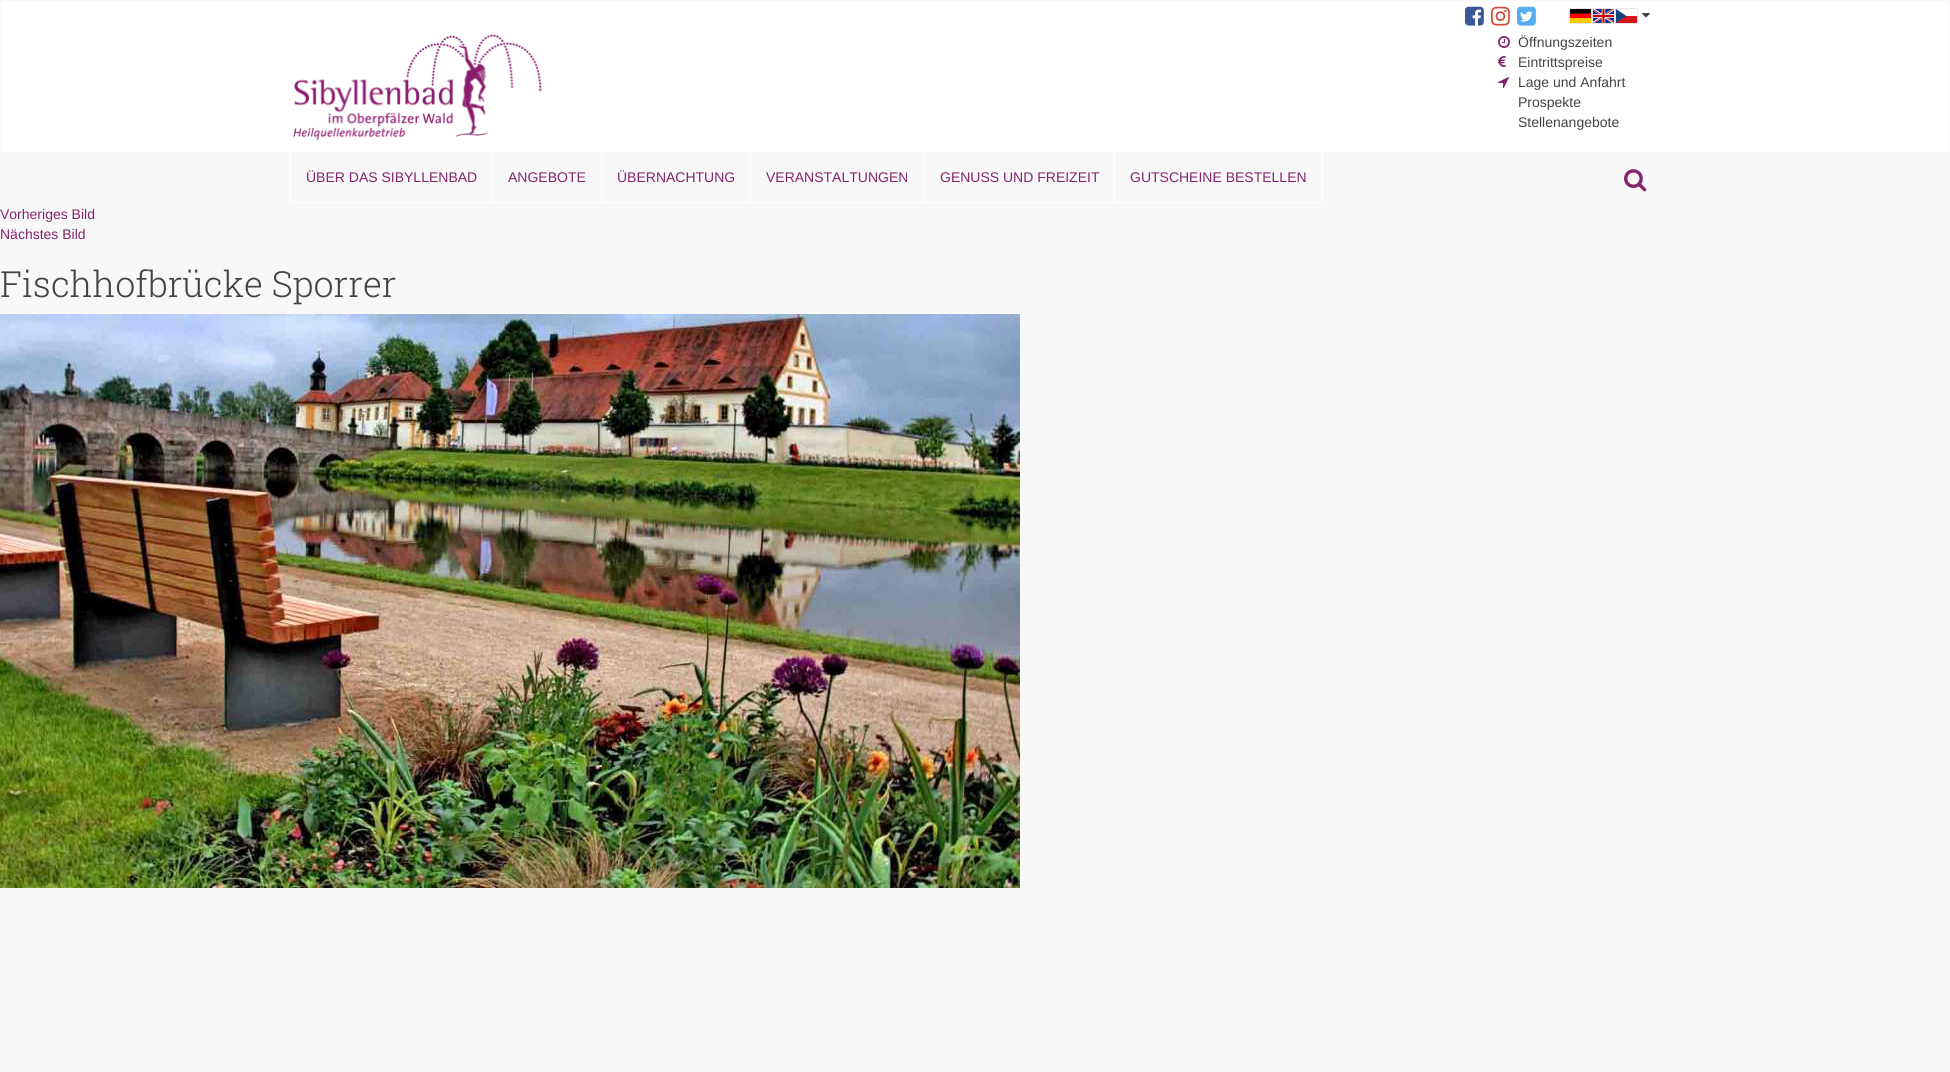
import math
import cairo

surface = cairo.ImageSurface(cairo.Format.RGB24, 1950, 1072)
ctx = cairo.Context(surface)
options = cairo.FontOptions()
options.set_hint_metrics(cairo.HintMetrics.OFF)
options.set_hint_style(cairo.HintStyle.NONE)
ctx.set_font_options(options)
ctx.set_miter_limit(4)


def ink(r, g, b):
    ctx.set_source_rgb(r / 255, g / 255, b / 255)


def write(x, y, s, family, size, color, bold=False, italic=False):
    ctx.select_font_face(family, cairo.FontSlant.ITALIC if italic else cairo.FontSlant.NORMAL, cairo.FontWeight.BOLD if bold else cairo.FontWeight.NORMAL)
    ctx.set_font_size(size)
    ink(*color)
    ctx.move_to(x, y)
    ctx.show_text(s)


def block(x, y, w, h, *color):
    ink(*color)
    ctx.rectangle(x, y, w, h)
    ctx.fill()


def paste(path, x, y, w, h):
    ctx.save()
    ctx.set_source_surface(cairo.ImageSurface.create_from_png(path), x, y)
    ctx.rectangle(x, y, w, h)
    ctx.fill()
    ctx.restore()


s1 = dict(family="Liberation Sans", size=14, color=(68, 68, 68))
s2 = dict(family="Liberation Sans", size=14, color=(131, 37, 106))
s3 = dict(family="Roboto Slab Light", size=36, color=(68, 68, 68))

ink(248, 248, 248)
ctx.paint()
block(1, 1, 1948, 151, 255, 255, 255)
paste("pic1.png", 1465, 6, 19, 20)
paste("pic2.png", 1491, 6, 19, 20)
paste("pic3.png", 1517, 6, 19, 20)
paste("pic4.png", 1569, 8, 69, 16)
paste("pic5.png", 1642, 13, 8, 5)
paste("pic6.png", 293, 34, 249, 107)
paste("pic7.png", 1498, 36, 12, 12)
write(1518, 47, "Öffnungszeiten", **s1)
paste("pic8.png", 1498, 56, 8, 11)
write(1518, 67, "Eintrittspreise", **s1)
paste("pic9.png", 1498, 77, 11, 11)
write(1518, 87, "Lage und Anfahrt", **s1)
write(1518, 107, "Prospekte", **s1)
write(1518, 127, "Stellenangebote", **s1)
block(492, 152, 1, 51, 255, 255, 255)
block(290, 202, 203, 1, 255, 255, 255)
block(290, 152, 1, 51, 255, 255, 255)
write(306, 182, "ÜBER DAS SIBYLLENBAD", **s2)
block(601, 152, 1, 51, 255, 255, 255)
block(493, 202, 109, 1, 255, 255, 255)
write(508, 182, "ANGEBOTE", **s2)
block(750, 152, 1, 51, 255, 255, 255)
block(602, 202, 149, 1, 255, 255, 255)
write(617, 182, "ÜBERNACHTUNG", **s2)
block(924, 152, 1, 51, 255, 255, 255)
block(751, 202, 174, 1, 255, 255, 255)
write(766, 182, "VERANSTALTUNGEN", **s2)
block(1114, 152, 1, 51, 255, 255, 255)
block(925, 202, 190, 1, 255, 255, 255)
write(940, 182, "GENUSS UND FREIZEIT", **s2)
block(1322, 152, 1, 51, 255, 255, 255)
block(1115, 202, 208, 1, 255, 255, 255)
write(1130, 182, "GUTSCHEINE BESTELLEN", **s2)
paste("pic10.png", 1624, 169, 23, 23)
write(0, 219, "Vorheriges Bild", **s2)
write(0, 239, "Nächstes Bild", **s2)
write(0, 297, "Fischhofbrücke Sporrer", **s3)
paste("pic11.png", 0, 314, 1020, 574)
surface.write_to_png("screenshot.png")
